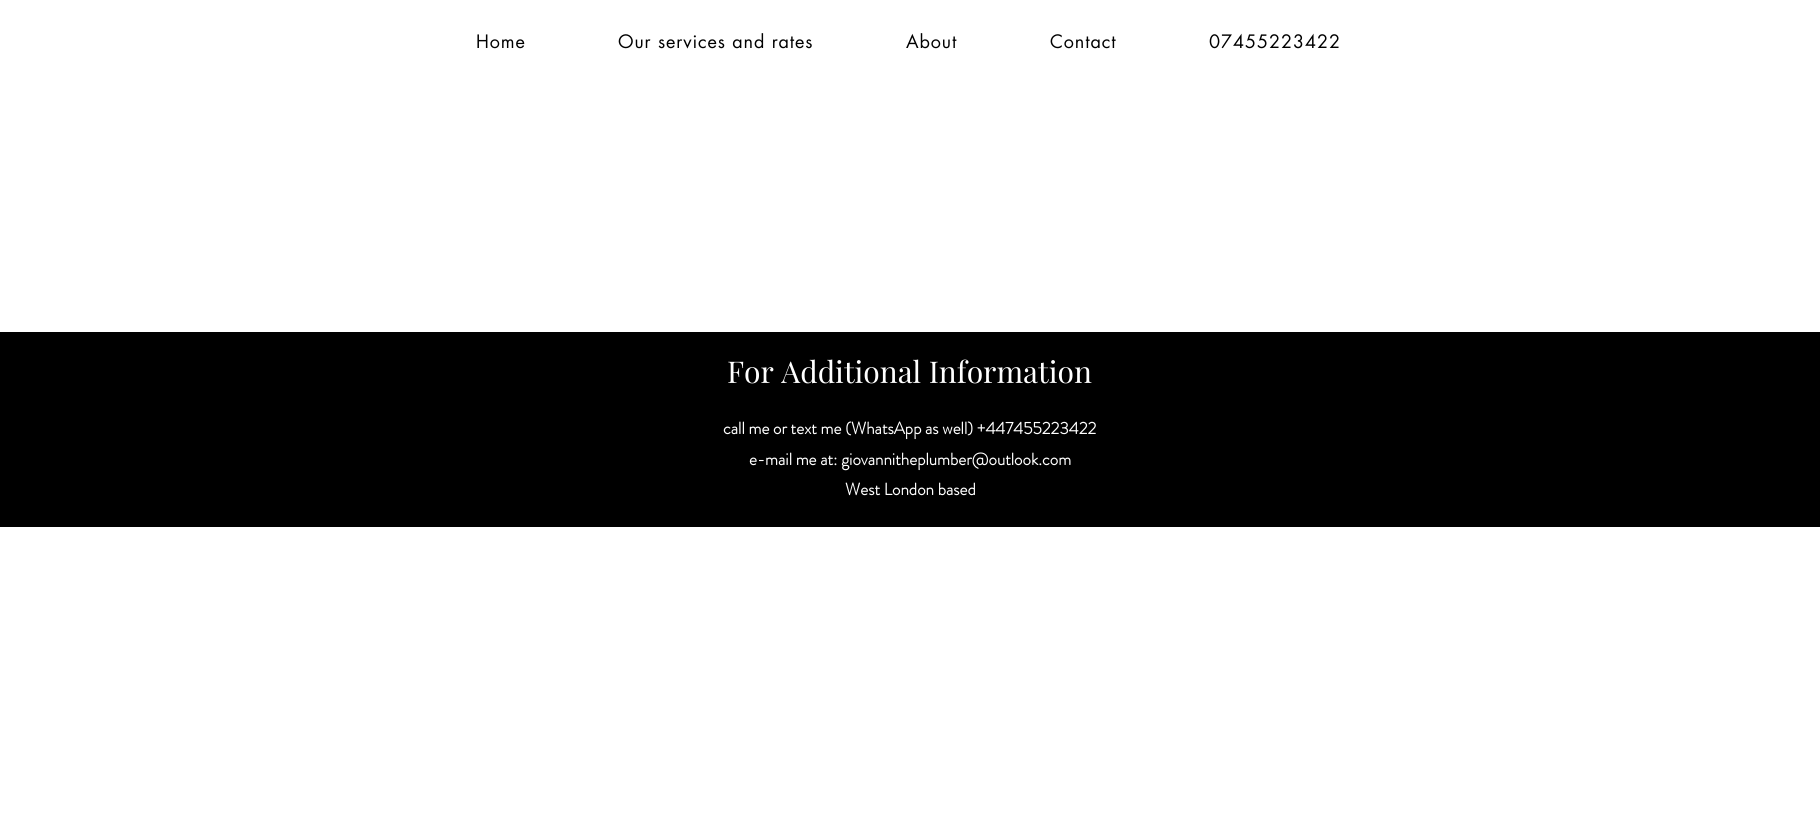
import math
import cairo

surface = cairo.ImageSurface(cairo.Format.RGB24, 1820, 817)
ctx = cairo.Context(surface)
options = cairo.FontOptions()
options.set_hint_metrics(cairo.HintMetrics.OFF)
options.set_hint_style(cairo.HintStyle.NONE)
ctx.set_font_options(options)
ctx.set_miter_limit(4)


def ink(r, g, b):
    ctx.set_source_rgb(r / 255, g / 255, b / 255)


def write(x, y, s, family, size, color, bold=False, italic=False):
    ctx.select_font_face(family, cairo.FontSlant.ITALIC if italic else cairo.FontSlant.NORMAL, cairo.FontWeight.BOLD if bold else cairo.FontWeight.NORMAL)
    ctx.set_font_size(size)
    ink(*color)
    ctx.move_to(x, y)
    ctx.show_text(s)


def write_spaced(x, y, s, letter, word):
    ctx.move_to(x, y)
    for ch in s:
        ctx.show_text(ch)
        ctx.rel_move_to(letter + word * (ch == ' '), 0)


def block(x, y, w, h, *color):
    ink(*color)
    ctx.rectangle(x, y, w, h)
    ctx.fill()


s1 = dict(family="Playfair Display", size=30, color=(255, 255, 255))
s2 = dict(family="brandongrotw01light", size=17, color=(255, 255, 255), bold=True)

ink(255, 255, 255)
ctx.paint()
ctx.select_font_face("futura")
ctx.set_font_size(18)
ink(0, 0, 0)
write_spaced(476, 48, "Home", 0.9, 0)
write_spaced(618, 48, "Our services and rates", 0.9, 0)
write_spaced(906, 48, "About", 0.9, 0)
write_spaced(1050, 48, "Contact", 0.9, 0)
write_spaced(1209, 48, "07455223422", 0.9, 0)
block(0, 332, 1820, 195, 0, 0, 0)
write(727, 383, "For Additional Information", **s1)
write(723, 434, "call me or text me (WhatsApp as well) +447455223422", **s2)
write(749, 465, "e-mail me at: giovannitheplumber@outlook.com", **s2)
write(845, 495, "West London based", **s2)
surface.write_to_png("screenshot.png")
